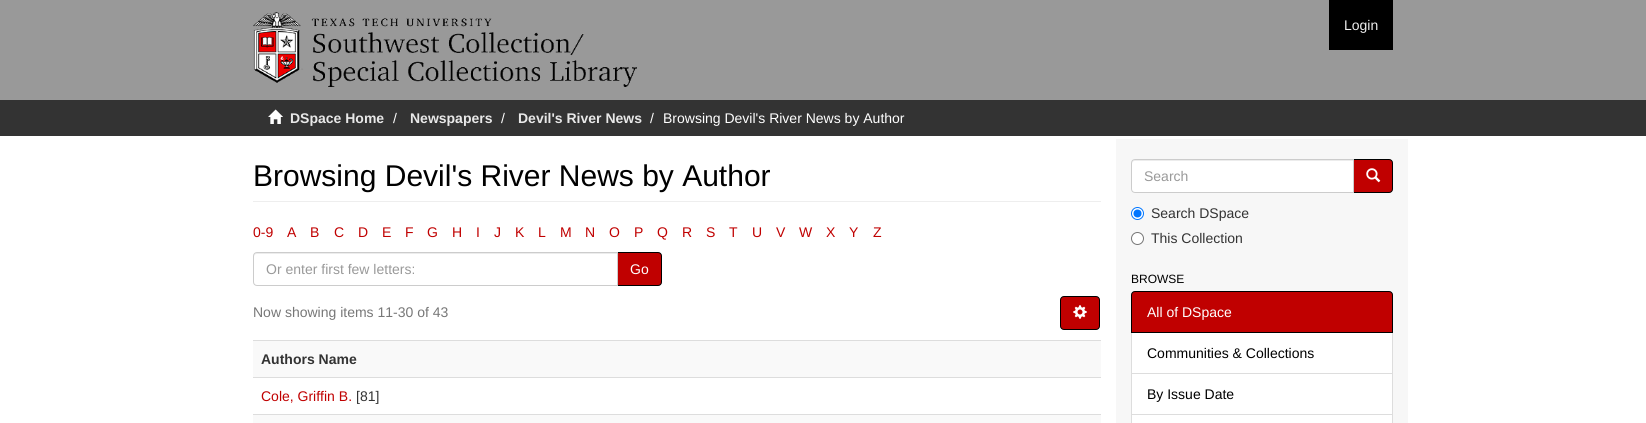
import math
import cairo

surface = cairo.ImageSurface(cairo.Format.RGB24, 1646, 423)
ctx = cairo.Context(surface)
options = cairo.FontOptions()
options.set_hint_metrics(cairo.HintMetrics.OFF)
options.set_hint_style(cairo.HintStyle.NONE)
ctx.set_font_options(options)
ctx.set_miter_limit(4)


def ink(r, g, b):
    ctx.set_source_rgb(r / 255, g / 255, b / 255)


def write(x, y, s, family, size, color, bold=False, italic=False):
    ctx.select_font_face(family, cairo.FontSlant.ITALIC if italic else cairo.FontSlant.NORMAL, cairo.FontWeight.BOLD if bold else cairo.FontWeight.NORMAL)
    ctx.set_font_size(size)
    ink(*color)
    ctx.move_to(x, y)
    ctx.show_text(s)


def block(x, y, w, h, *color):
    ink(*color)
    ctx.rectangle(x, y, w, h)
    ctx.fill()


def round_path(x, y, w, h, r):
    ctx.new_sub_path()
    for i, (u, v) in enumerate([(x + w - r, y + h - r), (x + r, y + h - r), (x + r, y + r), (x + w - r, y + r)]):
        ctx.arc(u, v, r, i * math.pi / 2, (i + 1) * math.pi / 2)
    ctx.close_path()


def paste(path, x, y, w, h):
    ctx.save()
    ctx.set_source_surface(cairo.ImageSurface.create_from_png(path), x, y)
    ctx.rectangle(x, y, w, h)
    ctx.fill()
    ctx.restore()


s1 = dict(family="Liberation Sans", size=14, color=(238, 238, 238))
s2 = dict(family="Liberation Sans", size=14, color=(232, 232, 232), bold=True)
s3 = dict(family="Liberation Sans", size=14, color=(255, 255, 255))
s4 = dict(family="Liberation Sans", size=30, color=(0, 0, 0))
s5 = dict(family="Liberation Sans", size=14, color=(192, 0, 0))
s6 = dict(family="Liberation Sans", size=14, color=(153, 153, 153))
s7 = dict(family="Liberation Sans", size=14, color=(119, 119, 119))
s8 = dict(family="Liberation Sans", size=14, color=(51, 51, 51), bold=True)
s9 = dict(family="Liberation Sans", size=14, color=(51, 51, 51))
s10 = dict(family="Liberation Sans", size=12, color=(0, 0, 0))
s11 = dict(family="Liberation Sans", size=14, color=(0, 0, 0))

ink(255, 255, 255)
ctx.paint()
block(0, 0, 1646, 100, 153, 153, 153)
paste("pic1.png", 253, 12, 384, 75)
block(1329, 0, 64, 50, 0, 0, 0)
write(1344, 30, "Login", **s1)
block(0, 100, 1646, 36, 51, 51, 51)
paste("pic2.png", 268, 109, 15, 15)
write(290, 123, "DSpace Home", **s2)
write(393, 123, "/", **s3)
write(410, 123, "Newspapers", **s2)
write(501, 123, "/", **s3)
write(518, 123, "Devil's River News", **s2)
write(650, 123, "/", **s3)
write(663, 123, "Browsing Devil's River News by Author", **s3)
block(1116, 139, 292, 284, 247, 247, 247)
block(253, 201, 848, 1, 238, 238, 238)
write(253, 186, "Browsing Devil's River News by Author", **s4)
write(253, 237, "0-9", **s5)
write(287, 237, "A", **s5)
write(310, 237, "B", **s5)
write(334, 237, "C", **s5)
write(358, 237, "D", **s5)
write(382, 237, "E", **s5)
write(405, 237, "F", **s5)
write(427, 237, "G", **s5)
write(452, 237, "H", **s5)
write(476, 237, "I", **s5)
write(494, 237, "J", **s5)
write(515, 237, "K", **s5)
write(538, 237, "L", **s5)
write(560, 237, "M", **s5)
write(585, 237, "N", **s5)
write(609, 237, "O", **s5)
write(634, 237, "P", **s5)
write(657, 237, "Q", **s5)
write(682, 237, "R", **s5)
write(706, 237, "S", **s5)
write(729, 237, "T", **s5)
write(752, 237, "U", **s5)
write(776, 237, "V", **s5)
write(799, 237, "W", **s5)
write(826, 237, "X", **s5)
write(849, 237, "Y", **s5)
write(873, 237, "Z", **s5)
ctx.new_path()
ctx.move_to(617.5, 252.5)
ctx.line_to(658, 252.5)
ctx.curve_to(660, 252.5, 661.5, 254, 661.5, 256)
ctx.line_to(661.5, 282)
ctx.curve_to(661.5, 284, 660, 285.5, 658, 285.5)
ctx.line_to(617.5, 285.5)
ctx.close_path()
ctx.fill_preserve()
ink(0, 0, 0)
ctx.set_line_width(1)
ctx.stroke()
ink(255, 255, 255)
ctx.new_path()
ctx.move_to(257, 252)
ctx.line_to(618, 252)
ctx.line_to(618, 286)
ctx.line_to(257, 286)
ctx.curve_to(255, 286, 253, 284, 253, 282)
ctx.line_to(253, 256)
ctx.curve_to(253, 254, 255, 252, 257, 252)
ctx.close_path()
ctx.fill()
ink(236, 236, 236)
ctx.new_path()
ctx.move_to(257, 254)
ctx.line_to(617, 254)
ctx.line_to(617, 253)
ctx.line_to(257, 253)
ctx.curve_to(255, 253, 254, 254, 254, 256)
ctx.line_to(254, 257)
ctx.curve_to(254, 255, 255, 254, 257, 254)
ctx.close_path()
ctx.fill()
ctx.new_path()
ctx.move_to(257, 252.5)
ctx.line_to(617.5, 252.5)
ctx.line_to(617.5, 285.5)
ctx.line_to(257, 285.5)
ctx.curve_to(255, 285.5, 253.5, 284, 253.5, 282)
ctx.line_to(253.5, 256)
ctx.curve_to(253.5, 254, 255, 252.5, 257, 252.5)
ctx.close_path()
ink(204, 204, 204)
ctx.stroke()
write(266, 274, "Or enter first few letters:", **s6)
write(630, 274, "Go", **s3)
write(253, 317, "Now showing items 11-30 of 43", **s7)
ink(192, 0, 0)
round_path(1060.5, 296.5, 39, 33, 3.5)
ctx.fill_preserve()
ink(0, 0, 0)
ctx.stroke()
paste("pic3.png", 1073, 305, 14, 14)
block(253, 341, 848, 36, 249, 249, 249)
block(253, 340, 848, 1, 221, 221, 221)
write(261, 364, "Authors Name", **s8)
block(253, 377, 848, 1, 221, 221, 221)
write(261, 401, "Cole, Griffin B.", **s5)
write(356, 401, "[81]", **s9)
block(253, 415, 848, 8, 249, 249, 249)
block(253, 414, 848, 1, 221, 221, 221)
ink(192, 0, 0)
ctx.new_path()
ctx.move_to(1353.5, 159.5)
ctx.line_to(1389, 159.5)
ctx.curve_to(1391, 159.5, 1392.5, 161, 1392.5, 163)
ctx.line_to(1392.5, 189)
ctx.curve_to(1392.5, 191, 1391, 192.5, 1389, 192.5)
ctx.line_to(1353.5, 192.5)
ctx.close_path()
ctx.fill_preserve()
ink(0, 0, 0)
ctx.stroke()
ink(255, 255, 255)
ctx.new_path()
ctx.move_to(1135, 159)
ctx.line_to(1354, 159)
ctx.line_to(1354, 193)
ctx.line_to(1135, 193)
ctx.curve_to(1133, 193, 1131, 191, 1131, 189)
ctx.line_to(1131, 163)
ctx.curve_to(1131, 161, 1133, 159, 1135, 159)
ctx.close_path()
ctx.fill()
ink(236, 236, 236)
ctx.new_path()
ctx.move_to(1135, 161)
ctx.line_to(1353, 161)
ctx.line_to(1353, 160)
ctx.line_to(1135, 160)
ctx.curve_to(1133, 160, 1132, 161, 1132, 163)
ctx.line_to(1132, 164)
ctx.curve_to(1132, 162, 1133, 161, 1135, 161)
ctx.close_path()
ctx.fill()
ctx.new_path()
ctx.move_to(1135, 159.5)
ctx.line_to(1353.5, 159.5)
ctx.line_to(1353.5, 192.5)
ctx.line_to(1135, 192.5)
ctx.curve_to(1133, 192.5, 1131.5, 191, 1131.5, 189)
ctx.line_to(1131.5, 163)
ctx.curve_to(1131.5, 161, 1133, 159.5, 1135, 159.5)
ctx.close_path()
ink(204, 204, 204)
ctx.stroke()
write(1144, 181, "Search", **s6)
paste("pic4.png", 1366, 168, 15, 15)
ink(255, 255, 255)
ctx.arc(1137.5, 213.5, 6, 0, 2 * math.pi)
ctx.fill_preserve()
ink(0, 117, 255)
ctx.stroke()
ctx.arc(1137.5, 213.5, 4, 0, 2 * math.pi)
ctx.fill()
write(1151, 218, "Search DSpace", **s9)
ink(255, 255, 255)
ctx.new_path()
ctx.arc(1137.5, 238.5, 6, 0, 2 * math.pi)
ctx.fill_preserve()
ink(118, 118, 118)
ctx.stroke()
write(1151, 243, "This Collection", **s9)
write(1131, 283, "BROWSE", **s10)
ink(255, 255, 255)
ctx.rectangle(1131.5, 332.5, 261, 41)
ctx.fill_preserve()
ink(221, 221, 221)
ctx.stroke()
ink(192, 0, 0)
ctx.new_path()
ctx.move_to(1135, 291.5)
ctx.line_to(1389, 291.5)
ctx.curve_to(1391, 291.5, 1392.5, 293, 1392.5, 295)
ctx.line_to(1392.5, 332.5)
ctx.line_to(1131.5, 332.5)
ctx.line_to(1131.5, 295)
ctx.curve_to(1131.5, 293, 1133, 291.5, 1135, 291.5)
ctx.close_path()
ctx.fill_preserve()
ink(0, 0, 0)
ctx.stroke()
write(1147, 317, "All of DSpace", **s3)
write(1147, 358, "Communities & Collections", **s11)
ink(255, 255, 255)
ctx.rectangle(1131.5, 373.5, 261, 41)
ctx.fill_preserve()
ink(221, 221, 221)
ctx.stroke()
write(1147, 399, "By Issue Date", **s11)
ink(255, 255, 255)
ctx.rectangle(1131.5, 414.5, 261, 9)
ctx.fill_preserve()
ink(221, 221, 221)
ctx.stroke()
surface.write_to_png("screenshot.png")
